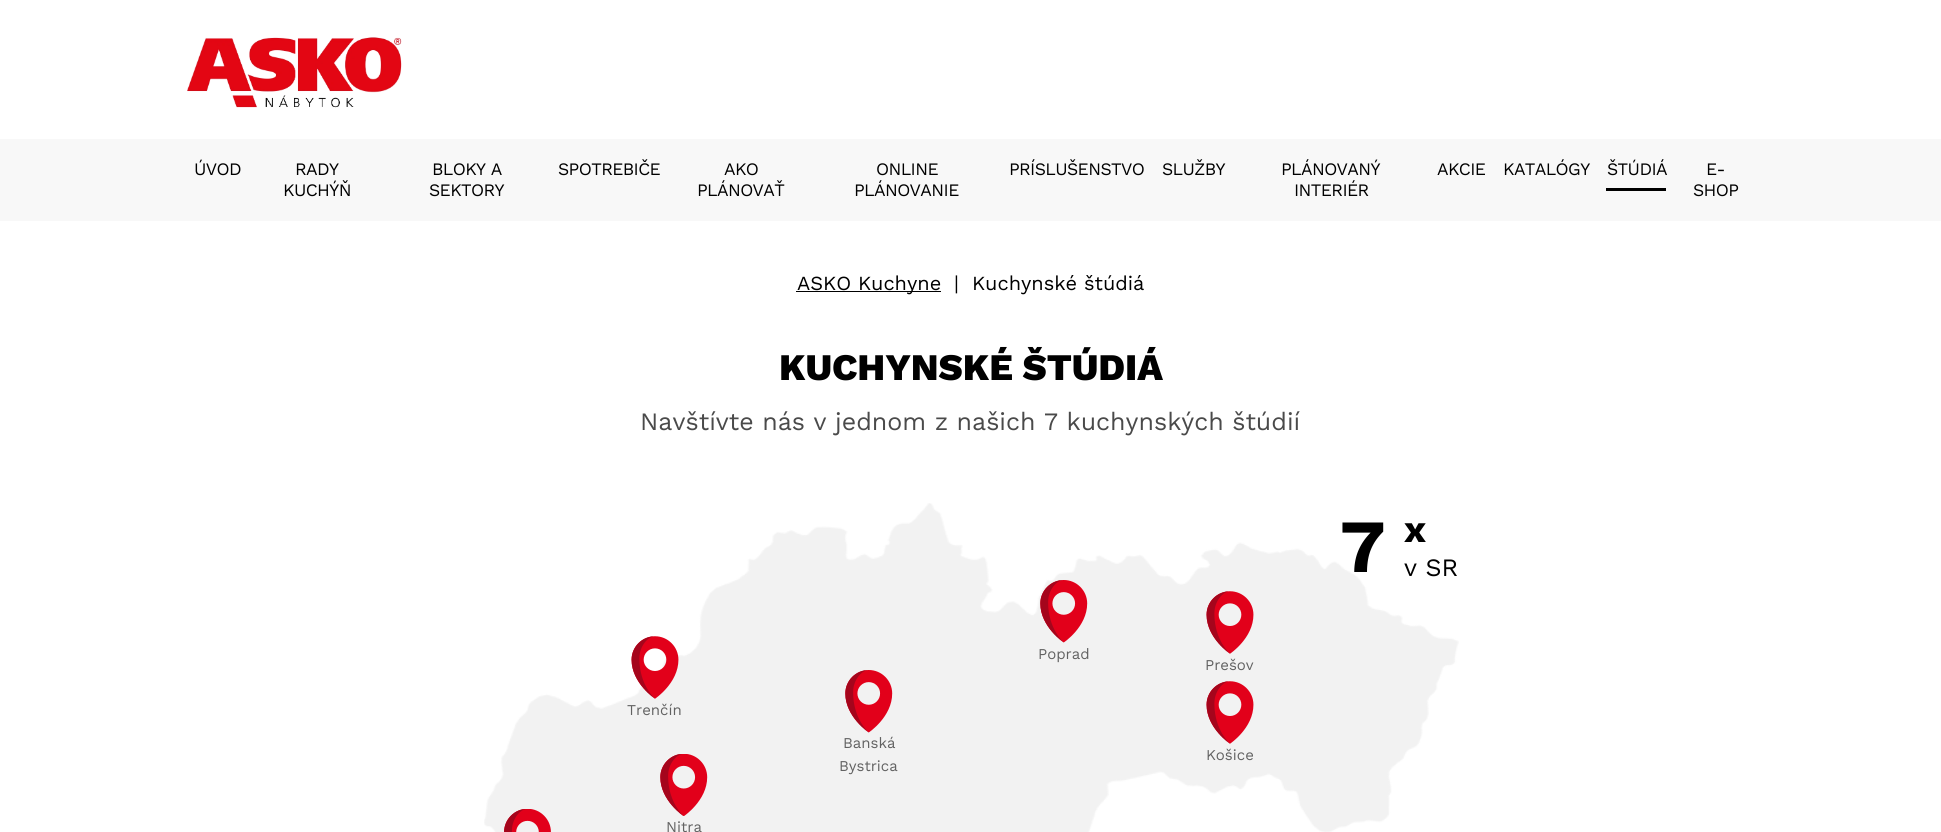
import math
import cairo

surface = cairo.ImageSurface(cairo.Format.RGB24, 1941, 832)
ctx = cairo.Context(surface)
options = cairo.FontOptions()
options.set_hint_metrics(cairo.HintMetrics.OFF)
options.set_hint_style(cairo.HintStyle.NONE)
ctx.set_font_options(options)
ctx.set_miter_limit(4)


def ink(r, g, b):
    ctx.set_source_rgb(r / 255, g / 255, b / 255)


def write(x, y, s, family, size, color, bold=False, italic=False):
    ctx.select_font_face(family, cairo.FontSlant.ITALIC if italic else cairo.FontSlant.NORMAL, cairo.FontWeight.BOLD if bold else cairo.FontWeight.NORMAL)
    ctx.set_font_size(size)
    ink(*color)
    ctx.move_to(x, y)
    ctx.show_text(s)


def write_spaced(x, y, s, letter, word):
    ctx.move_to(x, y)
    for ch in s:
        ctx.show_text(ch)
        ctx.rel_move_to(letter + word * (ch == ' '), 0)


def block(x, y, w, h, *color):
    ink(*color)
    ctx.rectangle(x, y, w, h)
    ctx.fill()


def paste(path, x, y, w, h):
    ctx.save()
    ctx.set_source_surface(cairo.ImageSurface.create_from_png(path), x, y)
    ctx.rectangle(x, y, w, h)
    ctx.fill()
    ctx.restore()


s1 = dict(family="Work Sans", size=20, color=(0, 0, 0))
s2 = dict(family="Work Sans", size=25, color=(74, 74, 74))
s3 = dict(family="Work Sans", size=75, color=(0, 0, 0), bold=True)
s4 = dict(family="Work Sans", size=37.5, color=(0, 0, 0), bold=True)
s5 = dict(family="Work Sans", size=25, color=(0, 0, 0))
s6 = dict(family="Work Sans", size=15, color=(98, 98, 98))

ink(255, 255, 255)
ctx.paint()
paste("pic1.png", 187, 37, 215, 71)
block(0, 139, 1941, 82, 248, 248, 248)
ctx.select_font_face("Work Sans")
ctx.set_font_size(17.5)
ink(0, 0, 0)
write_spaced(194, 175, "ÚVOD", -0.6, 0)
write_spaced(295, 175, "RADY", -0.6, 0)
write_spaced(283, 196, "KUCHÝŇ", -0.6, 0)
write_spaced(432, 175, "BLOKY A", -0.6, 0)
write_spaced(429, 196, "SEKTORY", -0.6, 0)
write_spaced(558, 175, "SPOTREBIČE", -0.6, 0)
write_spaced(724, 175, "AKO", -0.6, 0)
write_spaced(697, 196, "PLÁNOVAŤ", -0.6, 0)
write_spaced(876, 175, "ONLINE", -0.6, 0)
write_spaced(854, 196, "PLÁNOVANIE", -0.6, 0)
write_spaced(1009, 175, "PRÍSLUŠENSTVO", -0.6, 0)
write_spaced(1162, 175, "SLUŽBY", -0.6, 0)
write_spaced(1281, 175, "PLÁNOVANÝ", -0.6, 0)
write_spaced(1294, 196, "INTERIÉR", -0.6, 0)
write_spaced(1437, 175, "AKCIE", -0.6, 0)
write_spaced(1503, 175, "KATALÓGY", -0.6, 0)
write_spaced(1607, 175, "ŠTÚDIÁ", -0.6, 0)
block(1606, 188, 60, 3, 0, 0, 0)
write_spaced(1706, 175, "E-", -0.6, 0)
write_spaced(1693, 196, "SHOP", -0.6, 0)
block(796, 291, 145, 1, 0, 0, 0)
write(797, 290, "ASKO Kuchyne", **s1)
write(954, 290, "|", **s1)
write(972, 290, "Kuchynské štúdiá", **s1)
ctx.select_font_face("Work Sans ExtraBold")
ctx.set_font_size(37.5)
write_spaced(779, 380, "KUCHYNSKÉ ŠTÚDIÁ", -0.1, 0)
write(640, 430, "Navštívte nás v jednom z našich 7 kuchynských štúdií", **s2)
paste("pic2.png", 484, 503, 975, 329)
write(1340, 572, "7", **s3)
write(1404, 542, "x", **s4)
write(1404, 576, "v SR", **s5)
paste("pic3.png", 1040, 580, 48, 63)
write(1038, 659, "Poprad", **s6)
paste("pic4.png", 1206, 591, 48, 63)
write(1205, 670, "Prešov", **s6)
paste("pic5.png", 631, 636, 48, 63)
write(627, 715, "Trenčín", **s6)
paste("pic6.png", 845, 670, 48, 63)
write(843, 748, "Banská", **s6)
write(839, 771, "Bystrica", **s6)
paste("pic4.png", 1206, 681, 48, 63)
write(1206, 760, "Košice", **s6)
paste("pic7.png", 504, 809, 47, 23)
paste("pic8.png", 660, 754, 48, 62)
write(666, 832, "Nitra", **s6)
surface.write_to_png("screenshot.png")
